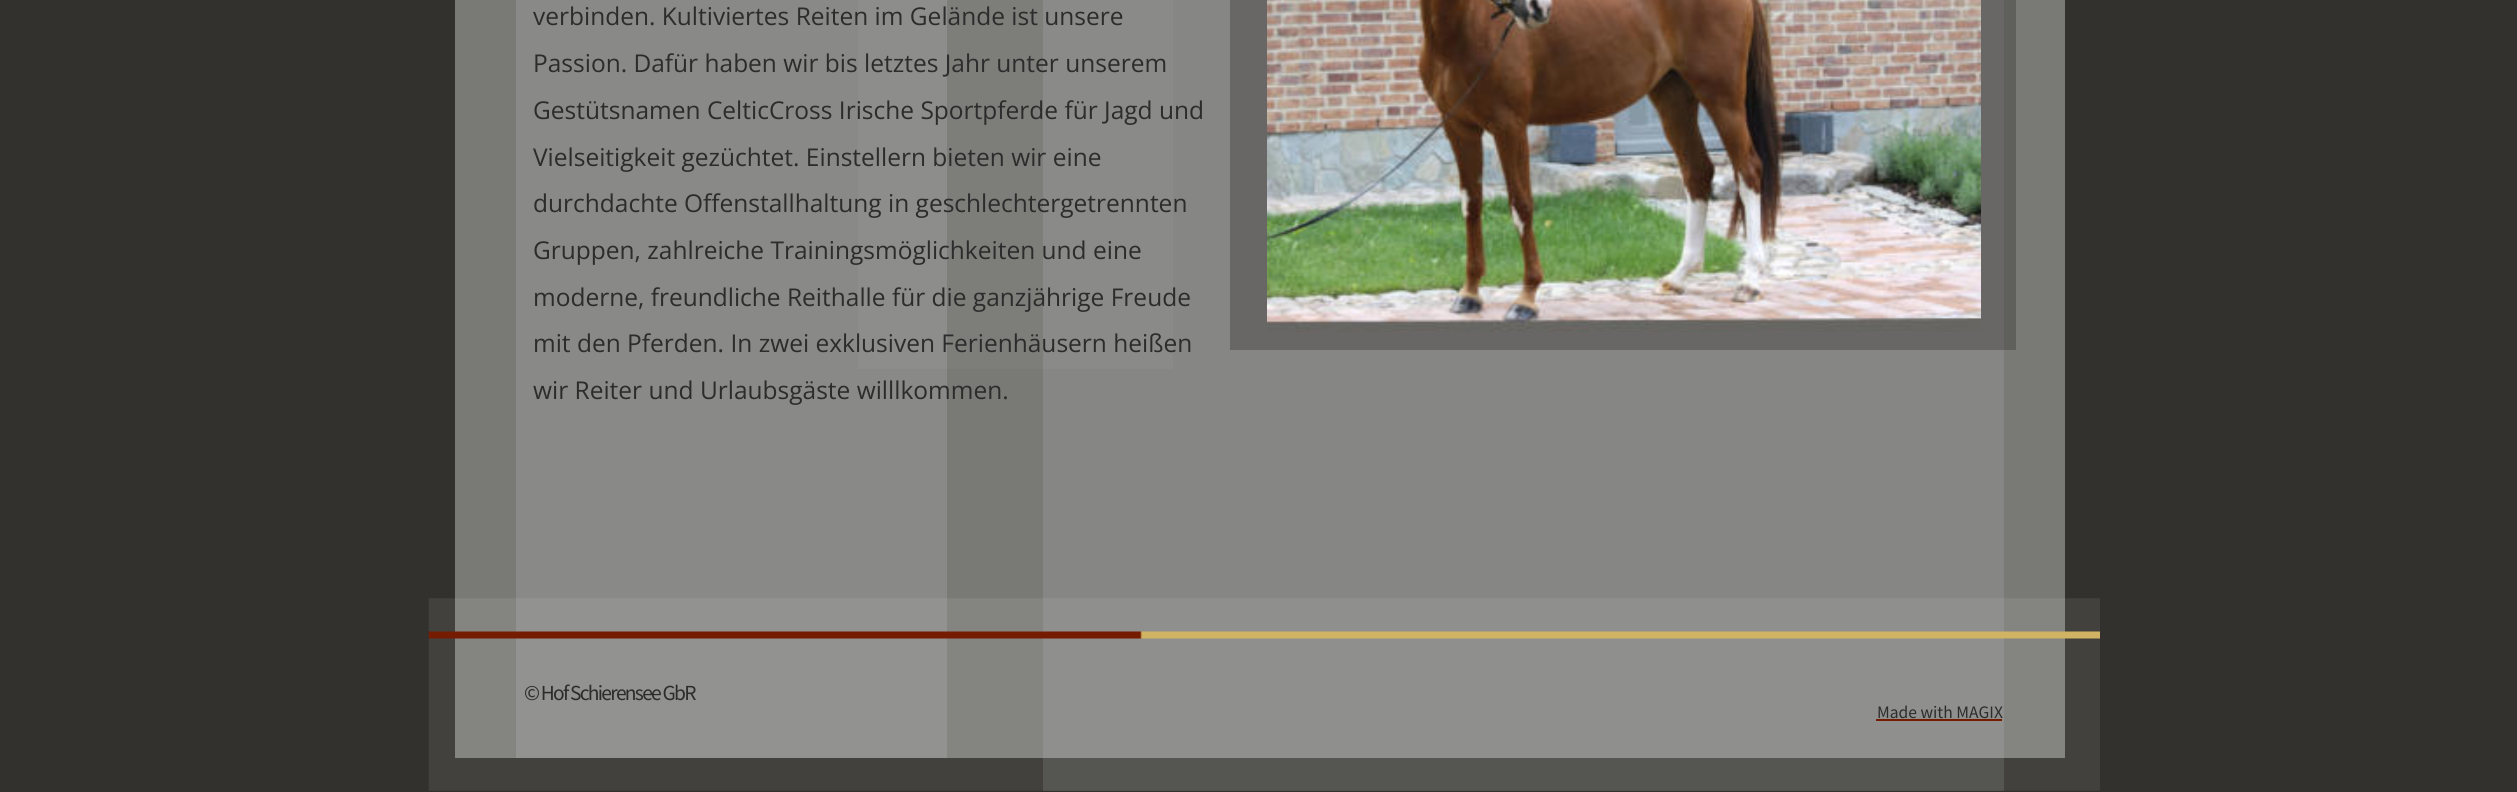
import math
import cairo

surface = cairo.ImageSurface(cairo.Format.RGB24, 2517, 792)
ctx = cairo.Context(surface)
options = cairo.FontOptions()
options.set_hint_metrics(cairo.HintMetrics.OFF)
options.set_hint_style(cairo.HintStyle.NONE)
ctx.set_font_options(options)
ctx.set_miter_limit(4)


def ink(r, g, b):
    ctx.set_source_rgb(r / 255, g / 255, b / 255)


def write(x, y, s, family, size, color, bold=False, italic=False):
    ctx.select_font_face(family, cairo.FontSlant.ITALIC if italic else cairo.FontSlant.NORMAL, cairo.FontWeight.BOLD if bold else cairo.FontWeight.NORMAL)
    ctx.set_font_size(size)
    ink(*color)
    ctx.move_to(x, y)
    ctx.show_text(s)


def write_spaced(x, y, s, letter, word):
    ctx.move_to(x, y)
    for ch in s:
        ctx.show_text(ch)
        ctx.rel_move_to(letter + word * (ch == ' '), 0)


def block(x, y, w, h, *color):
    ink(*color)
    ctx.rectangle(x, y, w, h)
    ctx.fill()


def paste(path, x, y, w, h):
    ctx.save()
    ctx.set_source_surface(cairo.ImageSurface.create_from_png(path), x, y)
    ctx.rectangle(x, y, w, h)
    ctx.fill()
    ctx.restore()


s1 = dict(family="Open Sans", size=24.5, color=(44, 44, 44))
s2 = dict(family="Source Sans Pro", size=17.5, color=(44, 44, 44))

ink(50, 49, 45)
ctx.paint()
block(1043, 758, 961, 33, 71, 70, 66)
block(455, 0, 1610, 758, 121, 121, 118)
block(2004, 0, 12, 350, 95, 95, 92)
block(947, 0, 96, 369, 125, 125, 122)
block(1043, 0, 961, 758, 134, 134, 132)
block(1230, 0, 774, 350, 104, 103, 101)
block(1043, 0, 130, 369, 138, 138, 136)
block(516, 0, 431, 758, 137, 137, 135)
block(858, 0, 89, 369, 141, 141, 139)
write(533, 25, "verbinden. Kultiviertes Reiten im Gelände ist unsere", **s1)
write(533, 72, "Passion. Dafür haben wir bis letztes Jahr unter unserem", **s1)
write(533, 119, "Gestütsnamen CelticCross Irische Sportpferde für Jagd und", **s1)
write(533, 166, "Vielseitigkeit gezüchtet. Einstellern bieten wir eine", **s1)
write(533, 212, "durchdachte Offenstallhaltung in geschlechtergetrennten", **s1)
write(533, 259, "Gruppen, zahlreiche Trainingsmöglichkeiten und eine", **s1)
write(533, 306, "moderne, freundliche Reithalle für die ganzjährige Freude", **s1)
write(533, 352, "mit den Pferden. In zwei exklusiven Ferienhäusern heißen", **s1)
write(533, 399, "wir Reiter und Urlaubsgäste willlkommen.", **s1)
paste("pic1.png", 1267, 0, 714, 332)
paste("pic2.png", 428, 598, 1672, 193)
ctx.select_font_face("Source Sans Pro")
ctx.set_font_size(21.5)
write_spaced(524, 700, "© Hof Schierensee GbR", -1.75, 0)
write(1877, 718, "Made with MAGIX", **s2)
block(1876, 719, 126, 2, 116, 27, 0)
surface.write_to_png("screenshot.png")
